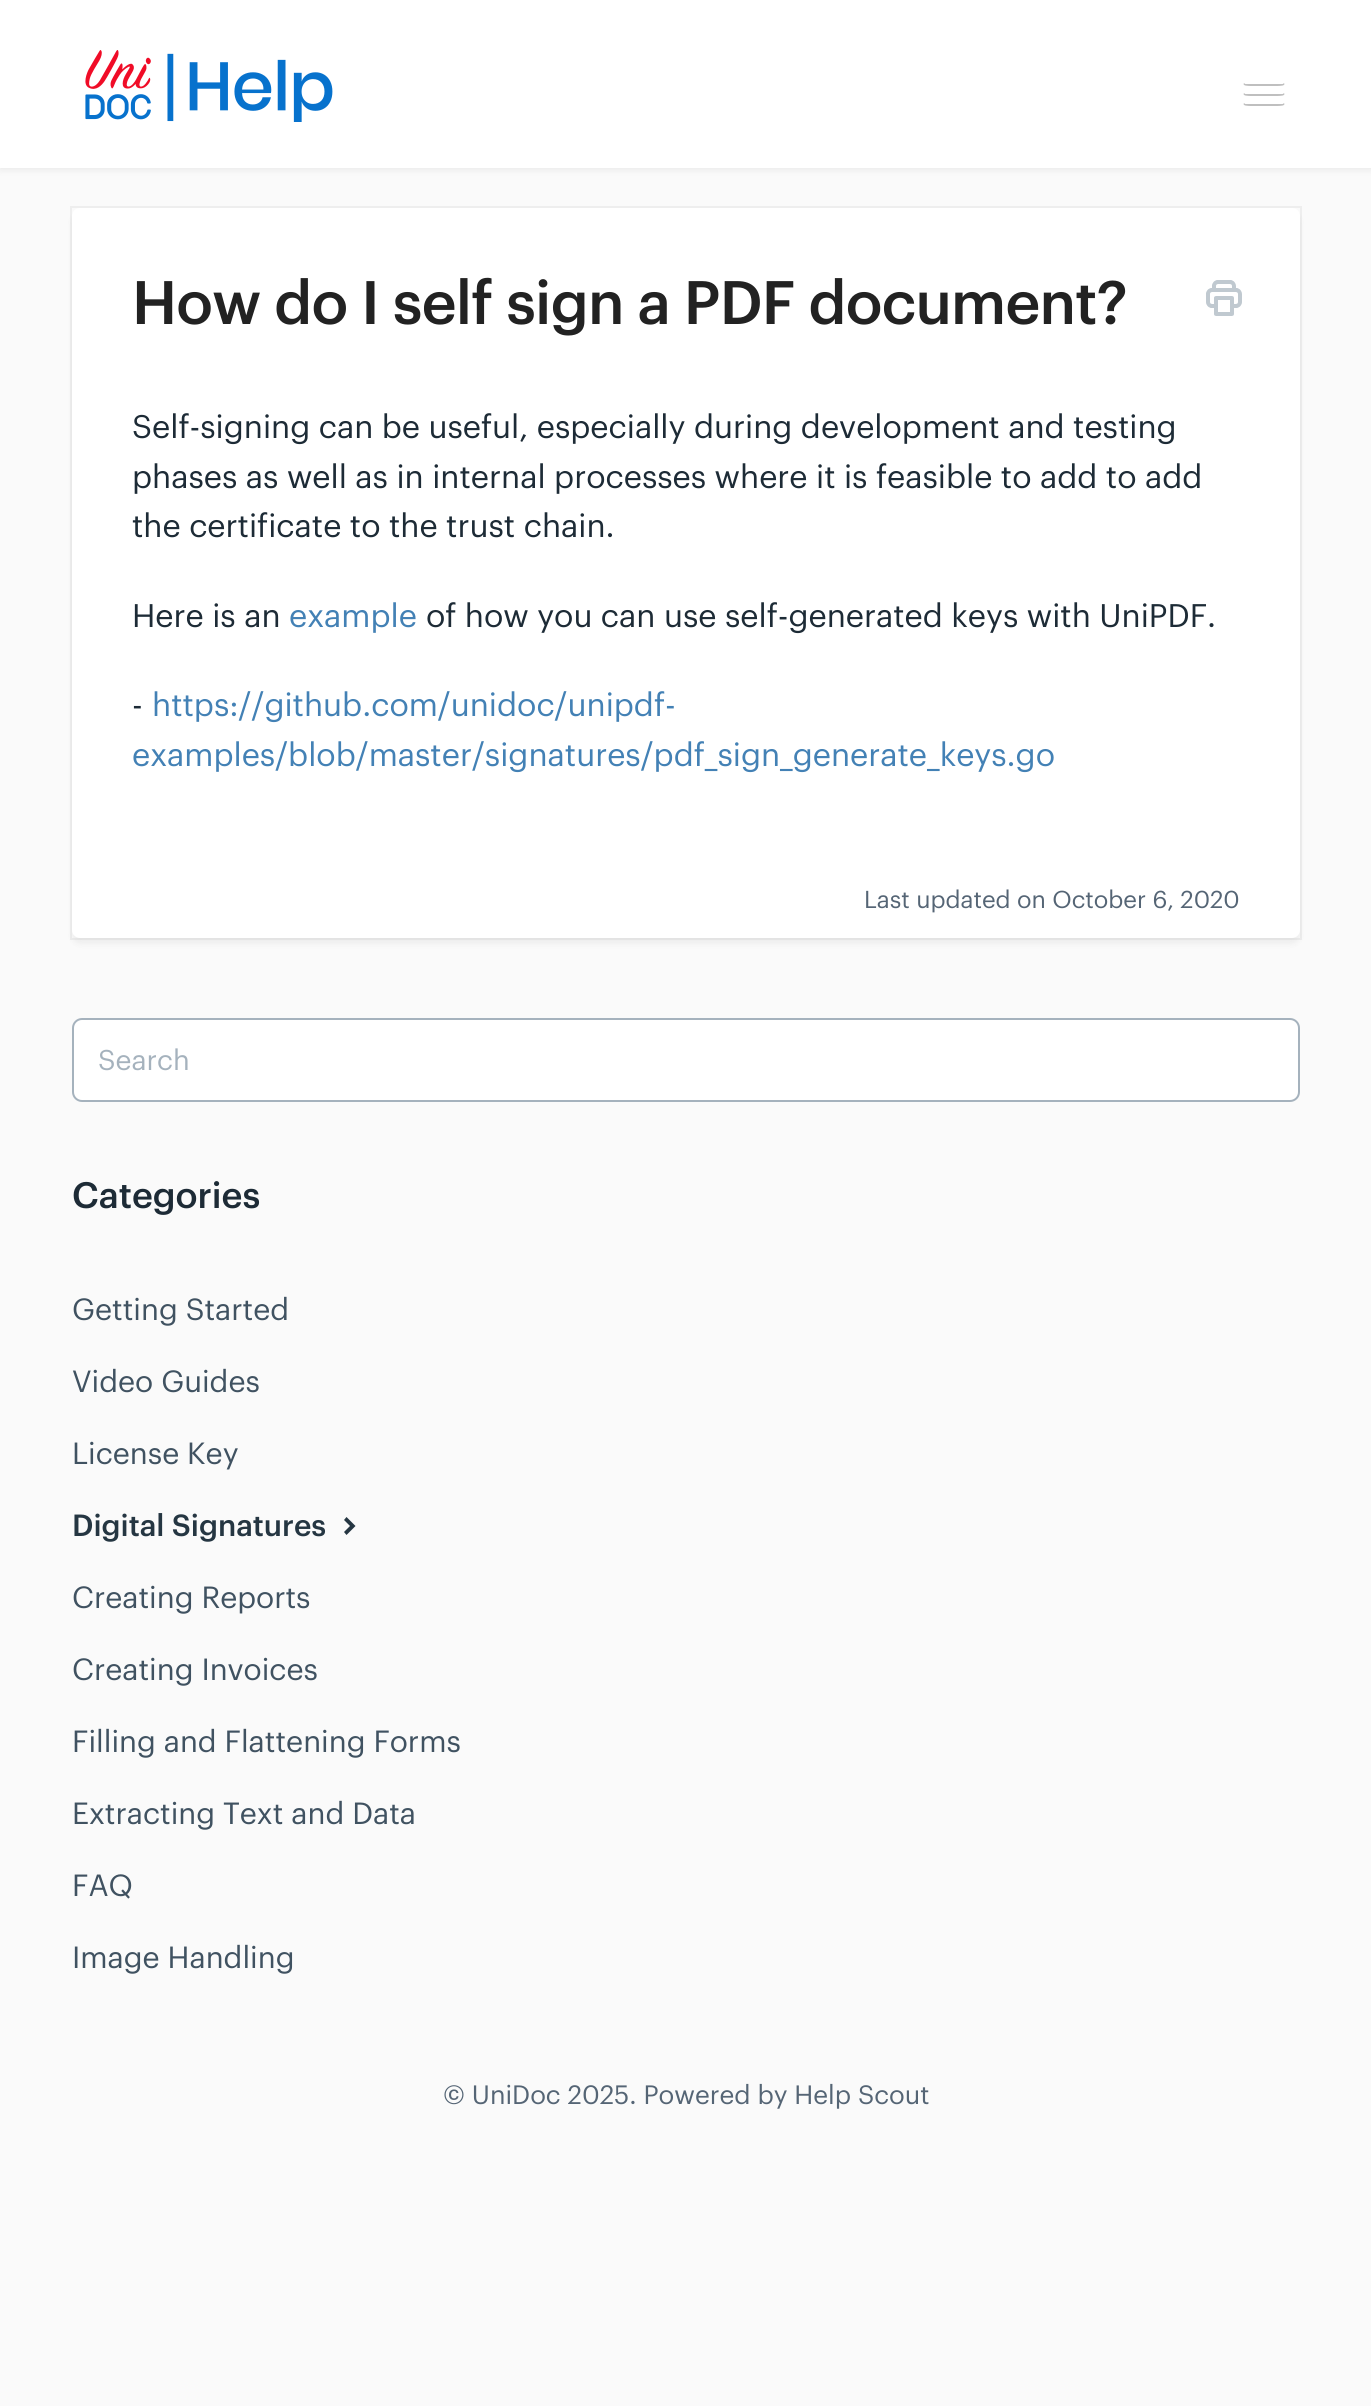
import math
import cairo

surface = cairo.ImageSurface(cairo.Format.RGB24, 1371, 2406)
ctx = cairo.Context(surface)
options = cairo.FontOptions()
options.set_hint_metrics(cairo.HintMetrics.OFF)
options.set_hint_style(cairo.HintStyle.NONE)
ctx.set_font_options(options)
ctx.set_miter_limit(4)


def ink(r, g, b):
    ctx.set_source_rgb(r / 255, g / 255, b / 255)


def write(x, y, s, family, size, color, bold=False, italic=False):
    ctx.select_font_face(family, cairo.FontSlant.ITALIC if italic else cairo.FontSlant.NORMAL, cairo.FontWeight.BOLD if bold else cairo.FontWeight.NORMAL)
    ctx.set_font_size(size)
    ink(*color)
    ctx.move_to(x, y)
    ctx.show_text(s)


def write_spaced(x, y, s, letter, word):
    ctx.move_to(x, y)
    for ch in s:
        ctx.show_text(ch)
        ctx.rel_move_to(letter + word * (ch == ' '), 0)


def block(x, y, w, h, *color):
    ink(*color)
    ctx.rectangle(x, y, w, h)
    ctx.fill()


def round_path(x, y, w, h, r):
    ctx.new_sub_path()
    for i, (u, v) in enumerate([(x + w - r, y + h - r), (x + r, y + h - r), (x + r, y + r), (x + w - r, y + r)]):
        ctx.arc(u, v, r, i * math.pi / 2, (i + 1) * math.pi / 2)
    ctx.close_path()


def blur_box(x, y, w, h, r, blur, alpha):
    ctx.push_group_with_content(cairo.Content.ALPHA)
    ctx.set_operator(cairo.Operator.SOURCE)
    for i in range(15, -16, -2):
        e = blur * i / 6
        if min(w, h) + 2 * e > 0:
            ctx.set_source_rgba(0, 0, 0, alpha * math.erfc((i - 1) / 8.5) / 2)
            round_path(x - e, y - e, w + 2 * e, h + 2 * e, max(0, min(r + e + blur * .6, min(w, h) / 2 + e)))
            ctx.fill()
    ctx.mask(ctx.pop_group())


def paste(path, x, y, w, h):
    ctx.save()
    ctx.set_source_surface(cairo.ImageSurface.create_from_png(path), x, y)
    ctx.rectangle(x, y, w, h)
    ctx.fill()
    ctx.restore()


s1 = dict(family="Graphik", size=32, color=(29, 43, 54))
s2 = dict(family="Graphik", size=32, color=(67, 129, 181))
s3 = dict(family="Graphik", size=24, color=(85, 101, 117))
s4 = dict(family="Graphik", size=28, color=(165, 178, 189))
s5 = dict(family="Graphik Medium", size=36, color=(29, 43, 54))
s6 = dict(family="Graphik", size=30, color=(64, 82, 97))
s7 = dict(family="Graphik Medium", size=30, color=(37, 54, 66))
s8 = dict(family="Graphik", size=26, color=(85, 101, 117))

ink(250, 250, 250)
ctx.paint()
ink(0, 0, 0)
blur_box(0, 2, 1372, 168, 0, 4, 0.07)
block(0, 0, 1371, 168, 255, 255, 255)
paste("pic1.png", 85, 50, 248, 72)
ink(191, 191, 191)
ctx.new_path()
ctx.move_to(1244, 83)
ctx.curve_to(1242, 86, 1248, 86, 1252, 86)
ctx.line_to(1276, 86)
ctx.curve_to(1280, 86, 1286, 86, 1284, 83)
ctx.line_to(1282, 84)
ctx.line_to(1246, 84)
ctx.close_path()
ctx.fill()
ink(255, 255, 255)
round_path(1244, 80, 40, 4, 2)
ctx.fill()
ink(191, 191, 191)
ctx.new_path()
ctx.move_to(1244, 93)
ctx.curve_to(1242, 96, 1248, 96, 1252, 96)
ctx.line_to(1276, 96)
ctx.curve_to(1280, 96, 1286, 96, 1284, 93)
ctx.line_to(1282, 94)
ctx.line_to(1246, 94)
ctx.close_path()
ctx.fill()
ink(255, 255, 255)
round_path(1244, 90, 40, 4, 2)
ctx.fill()
ink(191, 191, 191)
ctx.new_path()
ctx.move_to(1244, 103)
ctx.curve_to(1242, 106, 1248, 106, 1252, 106)
ctx.line_to(1276, 106)
ctx.curve_to(1280, 106, 1286, 106, 1284, 103)
ctx.line_to(1282, 104)
ctx.line_to(1246, 104)
ctx.close_path()
ctx.fill()
ink(255, 255, 255)
round_path(1244, 100, 40, 4, 2)
ctx.fill()
ink(0, 0, 0)
blur_box(72, 214, 1228, 730, 8, 3, 0.05)
ctx.rectangle(71, 207, 1230, 732)
ctx.set_source_rgba(0, 0, 0, 0.05)
ctx.stroke()
ink(255, 255, 255)
round_path(72, 208, 1228, 730, 8)
ctx.fill()
ctx.select_font_face("Graphik Medium")
ctx.set_font_size(60)
ink(34, 34, 34)
write_spaced(132, 324, "How do I self sign a PDF document?", -0.7, 0)
paste("pic2.png", 1206, 280, 36, 36)
write(132, 438, "Self-signing can be useful, especially during development and testing", **s1)
write(132, 488, "phases as well as in internal processes where it is feasible to add to add", **s1)
write(132, 537, "the certificate to the trust chain.", **s1)
write(132, 627, "Here is an", **s1)
write(289, 627, "example", **s2)
write(426, 627, "of how you can use self-generated keys with UniPDF.", **s1)
write(132, 716, "-", **s1)
write(152, 716, "https://github.com/unidoc/unipdf-", **s2)
write(132, 766, "examples/blob/master/signatures/pdf_sign_generate_keys.go", **s2)
write(864, 908, "Last updated on October 6, 2020", **s3)
ink(255, 255, 255)
round_path(73, 1019, 1226, 82, 9)
ctx.fill_preserve()
ink(165, 178, 189)
ctx.stroke()
write(98, 1070, "Search", **s4)
write(72, 1208, "Categories", **s5)
write(72, 1320, "Getting Started", **s6)
write(72, 1392, "Video Guides", **s6)
write(72, 1464, "License Key", **s6)
write(72, 1536, "Digital Signatures", **s7)
ctx.new_path()
ctx.move_to(346.5, 1517)
ctx.line_to(344, 1520)
ctx.line_to(350, 1526)
ctx.line_to(344, 1532)
ctx.line_to(346.5, 1535)
ctx.line_to(355.5, 1526)
ctx.close_path()
ctx.fill()
write(72, 1608, "Creating Reports", **s6)
write(72, 1680, "Creating Invoices", **s6)
write(72, 1752, "Filling and Flattening Forms", **s6)
write(72, 1824, "Extracting Text and Data", **s6)
write(72, 1896, "FAQ", **s6)
write(72, 1968, "Image Handling", **s6)
write(443, 2104, "© UniDoc 2025. Powered by Help Scout", **s8)
surface.write_to_png("screenshot.png")
